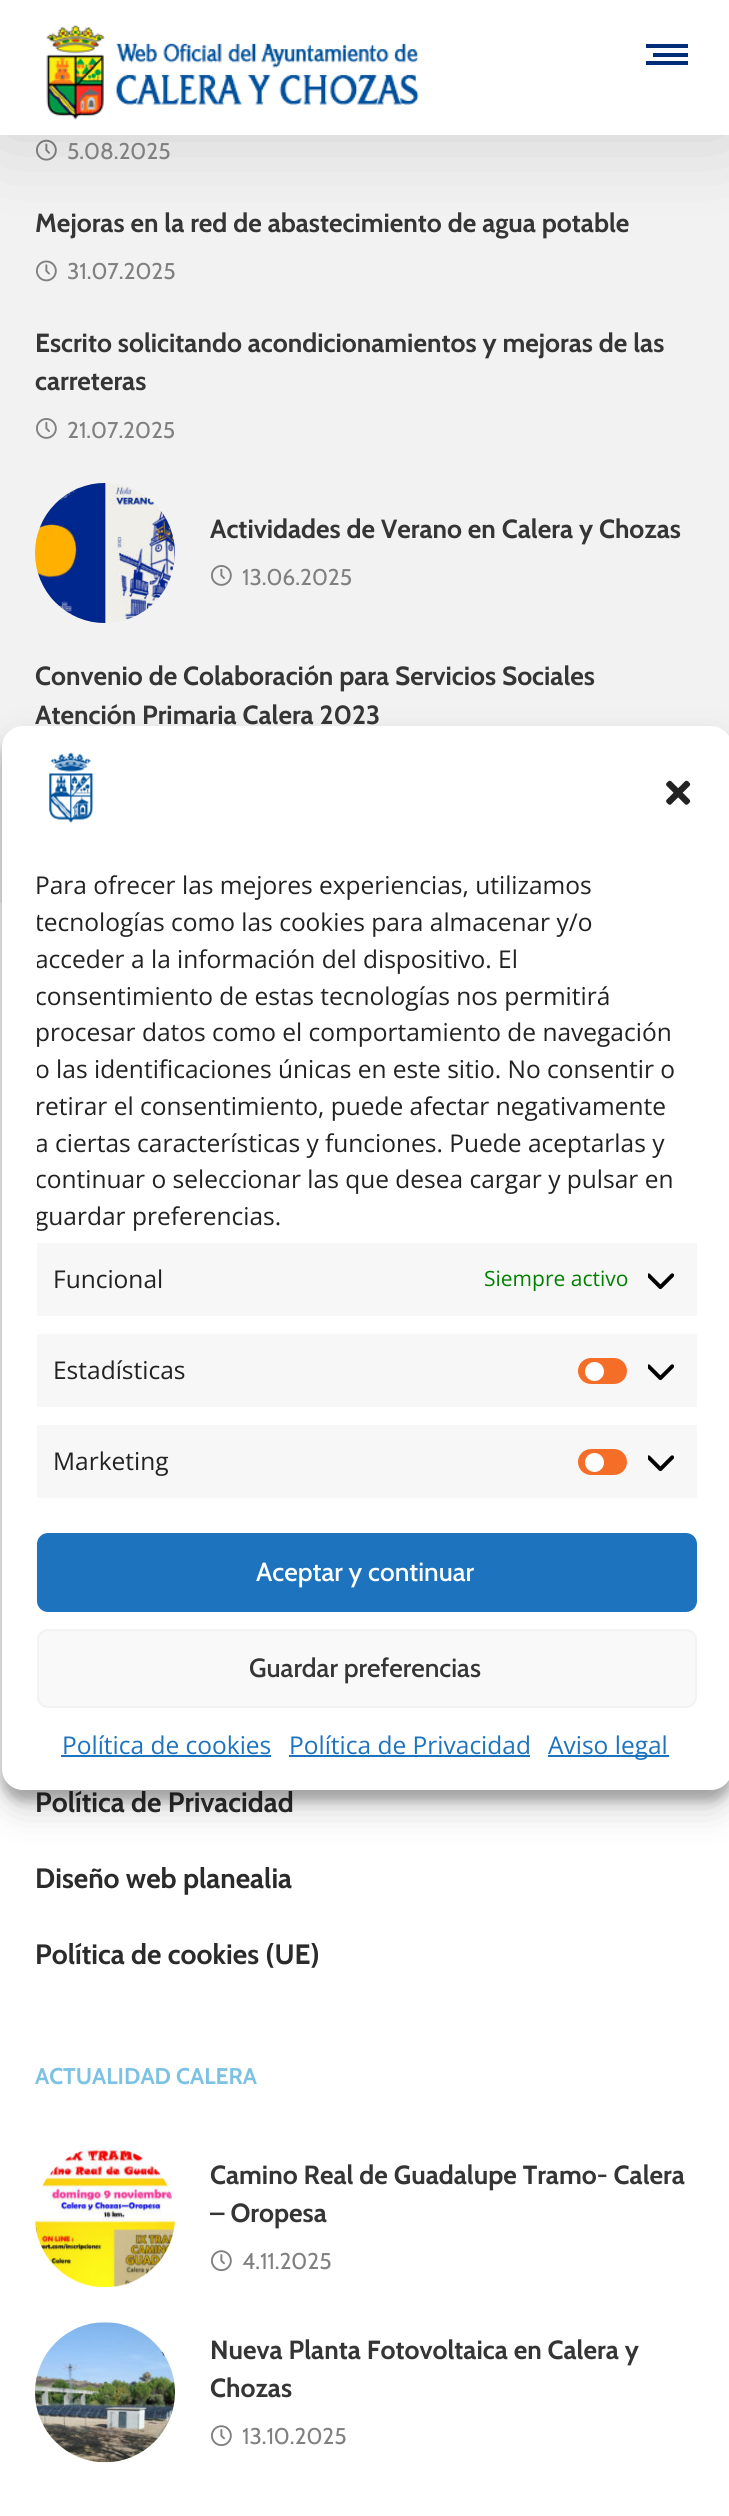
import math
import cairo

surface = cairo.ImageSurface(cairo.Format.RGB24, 729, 2516)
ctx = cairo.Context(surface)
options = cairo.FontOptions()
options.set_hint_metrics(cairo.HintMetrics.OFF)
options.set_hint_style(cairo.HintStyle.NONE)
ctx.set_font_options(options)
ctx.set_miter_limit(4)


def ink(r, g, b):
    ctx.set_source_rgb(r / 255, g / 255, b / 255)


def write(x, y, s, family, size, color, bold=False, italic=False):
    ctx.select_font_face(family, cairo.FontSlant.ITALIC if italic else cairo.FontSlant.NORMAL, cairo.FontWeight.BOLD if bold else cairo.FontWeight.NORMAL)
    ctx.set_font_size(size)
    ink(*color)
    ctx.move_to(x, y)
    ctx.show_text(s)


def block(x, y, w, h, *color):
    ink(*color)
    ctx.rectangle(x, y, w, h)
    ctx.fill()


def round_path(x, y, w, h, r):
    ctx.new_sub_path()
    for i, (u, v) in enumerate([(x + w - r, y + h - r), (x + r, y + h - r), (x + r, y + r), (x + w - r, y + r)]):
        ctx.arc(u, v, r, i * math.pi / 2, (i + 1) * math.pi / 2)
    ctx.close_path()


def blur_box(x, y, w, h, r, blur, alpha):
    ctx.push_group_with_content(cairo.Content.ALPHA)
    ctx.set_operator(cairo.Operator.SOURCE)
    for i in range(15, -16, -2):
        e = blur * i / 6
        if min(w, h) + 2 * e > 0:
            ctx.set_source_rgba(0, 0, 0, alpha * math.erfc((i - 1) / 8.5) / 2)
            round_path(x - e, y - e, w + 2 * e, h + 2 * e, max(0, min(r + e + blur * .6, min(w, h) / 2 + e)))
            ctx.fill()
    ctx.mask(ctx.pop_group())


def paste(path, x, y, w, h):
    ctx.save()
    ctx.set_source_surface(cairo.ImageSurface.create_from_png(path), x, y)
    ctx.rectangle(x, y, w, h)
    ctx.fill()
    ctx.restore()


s1 = dict(family="Cabin", size=22.75, color=(128, 128, 128))
s2 = dict(family="Cabin", size=26.25, color=(54, 53, 53), bold=True)
s3 = dict(family="Cabin", size=28, color=(43, 43, 43), bold=True)
s4 = dict(family="Cabin", size=22.75, color=(125, 194, 227), bold=True)
s5 = dict(family="Open Sans", size=24.5, color=(34, 34, 34))
s6 = dict(family="Open Sans", size=21, color=(0, 128, 0))
s7 = dict(family="Cabin Medium", size=26.25, color=(255, 255, 255))
s8 = dict(family="Cabin Medium", size=26.25, color=(54, 53, 53))
s9 = dict(family="Open Sans", size=24.5, color=(30, 115, 190))

ink(242, 242, 242)
ctx.paint()
paste("pic2.png", 36, 139, 21, 22)
paste("pic3.png", 36, 260, 21, 22)
ink(0, 0, 0)
blur_box(0, 0, 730, 135, 0, 44, 0.15)
block(0, 0, 729, 135, 255, 255, 255)
paste("pic1.png", 46, 25, 373, 95)
block(646, 44, 42, 4, 0, 45, 119)
block(653, 53, 35, 4, 0, 45, 119)
block(646, 61, 42, 4, 0, 45, 119)
write(67, 159, "5.08.2025", **s1)
write(35, 232, "Mejoras en la red de abastecimiento de agua potable", **s2)
write(67, 279, "31.07.2025", **s1)
write(35, 352, "Escrito solicitando acondicionamientos y mejoras de las", **s2)
write(35, 390, "carreteras", **s2)
paste("pic4.png", 36, 418, 21, 21)
write(67, 438, "21.07.2025", **s1)
paste("pic5.png", 35, 483, 140, 140)
write(210, 538, "Actividades de Verano en Calera y Chozas", **s2)
paste("pic4.png", 211, 565, 21, 21)
write(242, 585, "13.06.2025", **s1)
write(35, 685, "Convenio de Colaboración para Servicios Sociales", **s2)
write(35, 724, "Atención Primaria Calera 2023", **s2)
block(0, 903, 729, 1613, 255, 255, 255)
write(35, 1812, "Política de Privacidad", **s3)
write(35, 1888, "Diseño web planealia", **s3)
write(35, 1964, "Política de cookies (UE)", **s3)
write(35, 2084, "ACTUALIDAD CALERA", **s4)
paste("pic6.png", 35, 2147, 140, 140)
write(210, 2184, "Camino Real de Guadalupe Tramo- Calera", **s2)
write(210, 2222, "– Oropesa", **s2)
paste("pic7.png", 211, 2250, 21, 22)
write(242, 2269, "4.11.2025", **s1)
paste("pic8.png", 35, 2322, 140, 141)
write(210, 2359, "Nueva Planta Fotovoltaica en Calera y", **s2)
write(210, 2397, "Chozas", **s2)
paste("pic7.png", 211, 2425, 21, 22)
write(242, 2444, "13.10.2025", **s1)
ink(0, 0, 0)
blur_box(2, 737, 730, 1064, 21, 5, 0.23)
blur_box(2, 744, 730, 1064, 21, 17.5, 0.19)
ink(255, 255, 255)
round_path(2, 726, 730, 1064, 21)
ctx.fill()
paste("pic9.png", 49, 752, 45, 71)
paste("pic10.png", 666, 780, 25, 25)
write(35, 894, "Para ofrecer las mejores experiencias, utilizamos", **s5)
ctx.save()
ctx.rectangle(37, 866, 660, 632)
ctx.clip()
write(35, 931, "tecnologías como las cookies para almacenar y/o", **s5)
write(35, 968, "acceder a la información del dispositivo. El", **s5)
write(35, 1005, "consentimiento de estas tecnologías nos permitirá", **s5)
ctx.restore()
write(35, 1041, "procesar datos como el comportamiento de navegación", **s5)
ctx.save()
ctx.rectangle(37, 866, 660, 632)
ctx.clip()
write(35, 1078, "o las identificaciones únicas en este sitio. No consentir o", **s5)
ctx.restore()
write(35, 1115, "retirar el consentimiento, puede afectar negativamente", **s5)
ctx.save()
ctx.rectangle(37, 866, 660, 632)
ctx.clip()
write(35, 1152, "a ciertas características y funciones. Puede aceptarlas y", **s5)
write(35, 1188, "continuar o seleccionar las que desea cargar y pulsar en", **s5)
write(35, 1225, "guardar preferencias.", **s5)
ctx.restore()
block(37, 1243, 660, 73, 247, 247, 247)
write(53, 1288, "Funcional", **s5)
write(484, 1286, "Siempre activo", **s6)
paste("pic11.png", 648, 1273, 26, 17)
block(37, 1334, 660, 73, 247, 247, 247)
write(53, 1379, "Estadísticas", **s5)
ink(245, 110, 40)
round_path(578, 1358, 49, 26, 13)
ctx.fill()
ink(255, 255, 255)
ctx.arc(594.5, 1371.5, 9.5, 0, 2 * math.pi)
ctx.fill()
paste("pic11.png", 648, 1364, 26, 17)
block(37, 1425, 660, 73, 247, 247, 247)
write(53, 1470, "Marketing", **s5)
ink(245, 110, 40)
round_path(578, 1449, 49, 26, 13)
ctx.fill()
ink(255, 255, 255)
ctx.arc(594.5, 1462.5, 9.5, 0, 2 * math.pi)
ctx.fill()
paste("pic11.png", 648, 1455, 26, 17)
ink(30, 115, 190)
round_path(38, 1534, 658, 77, 10)
ctx.fill_preserve()
ctx.stroke()
write(256, 1581, "Aceptar y continuar", **s7)
ink(249, 249, 249)
round_path(38, 1630, 658, 77, 10)
ctx.fill_preserve()
ink(242, 242, 242)
ctx.stroke()
write(249, 1677, "Guardar preferencias", **s8)
write(62, 1754, "Política de cookies", **s9)
block(61, 1755, 210, 2, 30, 115, 190)
write(289, 1754, "Política de Privacidad", **s9)
block(289, 1755, 241, 2, 30, 115, 190)
block(548, 1755, 121, 2, 30, 115, 190)
write(548, 1754, "Aviso legal", **s9)
surface.write_to_png("screenshot.png")
